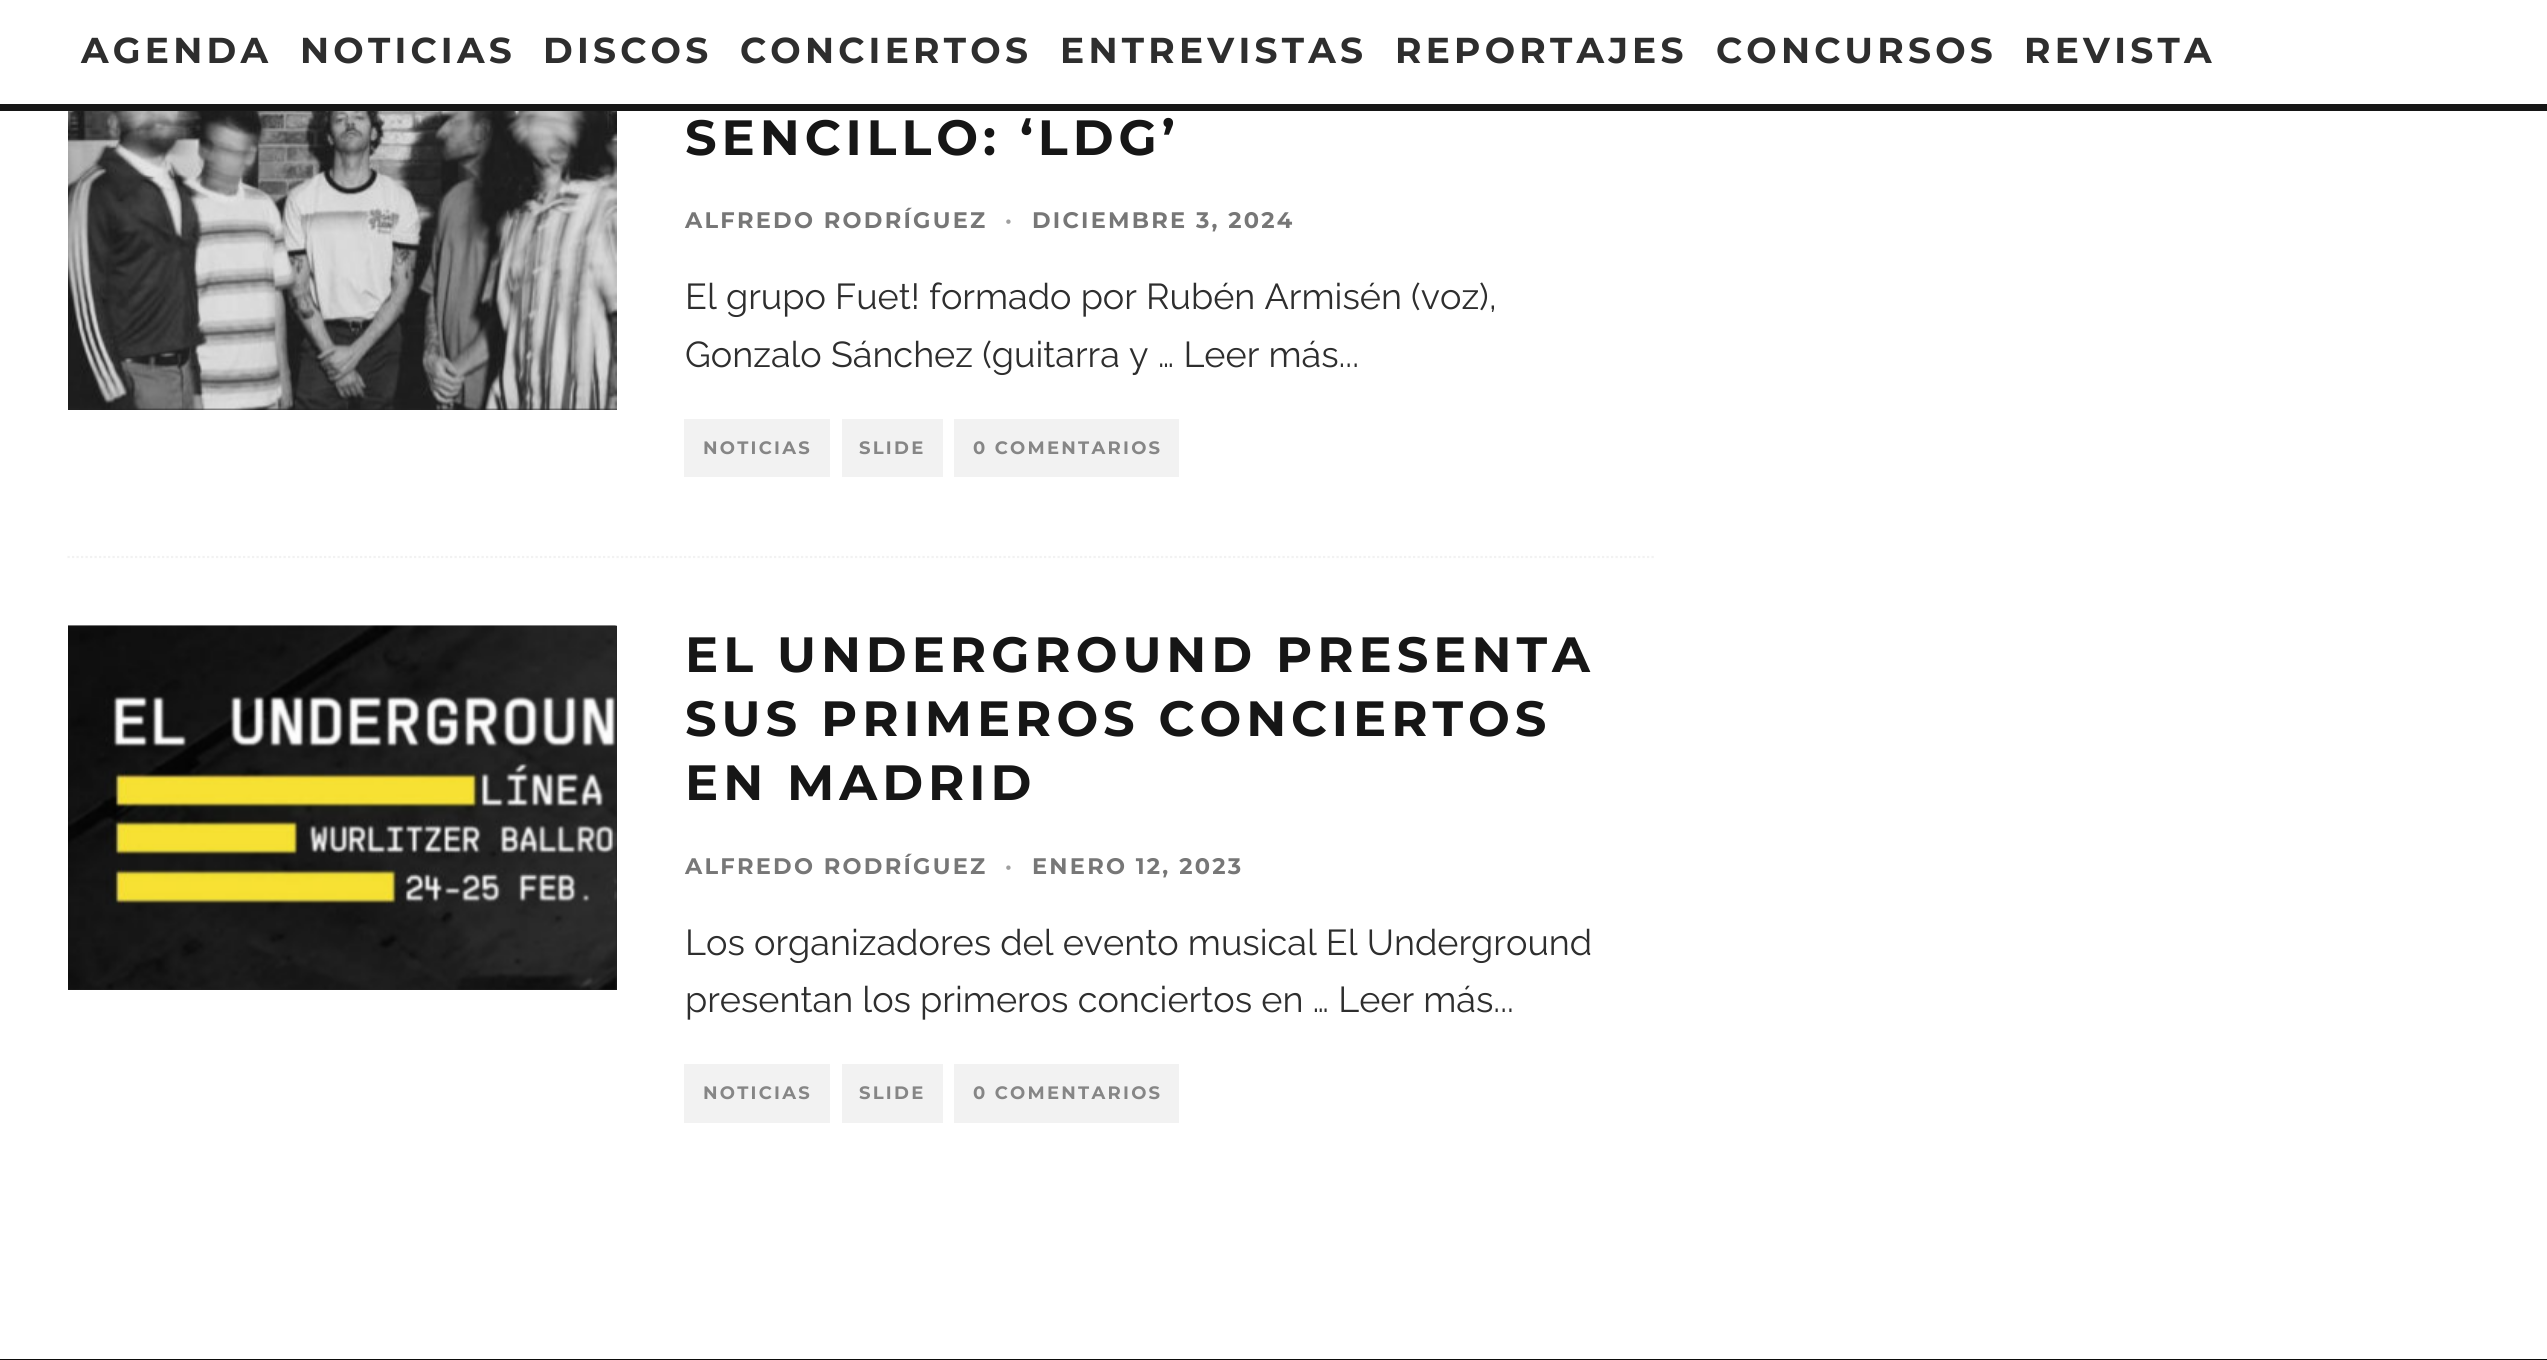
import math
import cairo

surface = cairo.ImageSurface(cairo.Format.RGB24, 2547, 1360)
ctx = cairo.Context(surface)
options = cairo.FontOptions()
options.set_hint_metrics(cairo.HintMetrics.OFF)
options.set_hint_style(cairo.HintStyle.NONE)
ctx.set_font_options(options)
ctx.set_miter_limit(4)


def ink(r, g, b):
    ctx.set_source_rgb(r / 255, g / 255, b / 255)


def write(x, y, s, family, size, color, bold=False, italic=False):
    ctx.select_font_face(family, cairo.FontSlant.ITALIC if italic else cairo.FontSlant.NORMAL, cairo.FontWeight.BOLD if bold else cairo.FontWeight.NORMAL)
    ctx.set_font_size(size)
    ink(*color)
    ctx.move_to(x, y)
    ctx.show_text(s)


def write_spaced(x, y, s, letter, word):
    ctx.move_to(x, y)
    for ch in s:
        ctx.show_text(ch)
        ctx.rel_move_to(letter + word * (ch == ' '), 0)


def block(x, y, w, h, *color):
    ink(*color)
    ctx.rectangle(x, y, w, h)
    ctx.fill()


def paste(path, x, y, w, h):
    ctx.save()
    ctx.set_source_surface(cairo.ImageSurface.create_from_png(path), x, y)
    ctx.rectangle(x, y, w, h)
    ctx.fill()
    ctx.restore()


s1 = dict(family="Raleway", size=36, color=(46, 46, 46))

ink(255, 255, 255)
ctx.paint()
block(0, 104, 2547, 7, 22, 22, 22)
ctx.select_font_face("Montserrat", cairo.FontSlant.NORMAL, cairo.FontWeight.BOLD)
ctx.set_font_size(36)
ink(46, 46, 46)
write_spaced(81, 63, "AGENDA", 4.25, 0)
write_spaced(300, 63, "NOTICIAS", 4.25, 0)
write_spaced(543, 63, "DISCOS", 4.25, 0)
write_spaced(740, 63, "CONCIERTOS", 4.25, 0)
write_spaced(1060, 63, "ENTREVISTAS", 4.25, 0)
write_spaced(1395, 63, "REPORTAJES", 4.25, 0)
write_spaced(1716, 63, "CONCURSOS", 4.25, 0)
write_spaced(2024, 63, "REVISTA", 4.25, 0)
ctx.new_path()
ctx.move_to(67.5, 557)
ctx.line_to(1654, 557)
ink(242, 242, 242)
ctx.set_line_width(2.2)
ctx.set_dash([2.25, 2.25])
ctx.stroke()
block(68, 408, 549, 2, 34, 34, 34)
paste("pic1.png", 68, 111, 549, 299)
ctx.set_font_size(49.5)
ink(22, 22, 22)
write_spaced(685, 155, "SENCILLO: ‘LDG’", 4.95, 0)
ctx.set_font_size(22.5)
ink(119, 119, 119)
write_spaced(685, 228, "ALFREDO RODRÍGUEZ", 2.25, 0)
ink(160, 160, 160)
write_spaced(1005, 228, "·", 2.25, 0)
ink(119, 119, 119)
write_spaced(1032, 228, "DICIEMBRE 3, 2024", 2.25, 0)
write(685, 309, "El grupo Fuet! formado por Rubén Armisén (voz),", **s1)
write(685, 367, "Gonzalo Sánchez (guitarra y … Leer más...", **s1)
block(684, 419, 146, 58, 242, 242, 242)
ctx.select_font_face("Montserrat", cairo.FontSlant.NORMAL, cairo.FontWeight.BOLD)
ctx.set_font_size(18)
ink(134, 134, 134)
write_spaced(703, 454, "NOTICIAS", 2.25, 0)
block(842, 419, 101, 58, 242, 242, 242)
ink(134, 134, 134)
write_spaced(859, 454, "SLIDE", 2.25, 0)
block(954, 419, 225, 58, 242, 242, 242)
ink(134, 134, 134)
write_spaced(973, 454, "0 COMENTARIOS", 2.25, 0)
block(68, 626, 549, 364, 34, 34, 34)
paste("pic2.png", 68, 625, 549, 365)
ctx.set_font_size(49.5)
ink(22, 22, 22)
write_spaced(685, 672, "EL UNDERGROUND PRESENTA", 4.95, 0)
write_spaced(685, 736, "SUS PRIMEROS CONCIERTOS", 4.95, 0)
write_spaced(685, 800, "EN MADRID", 4.95, 0)
ctx.set_font_size(22.5)
ink(119, 119, 119)
write_spaced(685, 874, "ALFREDO RODRÍGUEZ", 2.25, 0)
ink(160, 160, 160)
write_spaced(1005, 874, "·", 2.25, 0)
ink(119, 119, 119)
write_spaced(1032, 874, "ENERO 12, 2023", 2.25, 0)
write(685, 955, "Los organizadores del evento musical El Underground", **s1)
write(685, 1012, "presentan los primeros conciertos en … Leer más...", **s1)
block(684, 1064, 146, 59, 242, 242, 242)
ctx.select_font_face("Montserrat", cairo.FontSlant.NORMAL, cairo.FontWeight.BOLD)
ctx.set_font_size(18)
ink(134, 134, 134)
write_spaced(703, 1099, "NOTICIAS", 2.25, 0)
block(842, 1064, 101, 59, 242, 242, 242)
ink(134, 134, 134)
write_spaced(859, 1099, "SLIDE", 2.25, 0)
block(954, 1064, 225, 59, 242, 242, 242)
ink(134, 134, 134)
write_spaced(973, 1099, "0 COMENTARIOS", 2.25, 0)
block(0, 1359, 2547, 1, 12, 12, 11)
surface.write_to_png("screenshot.png")
